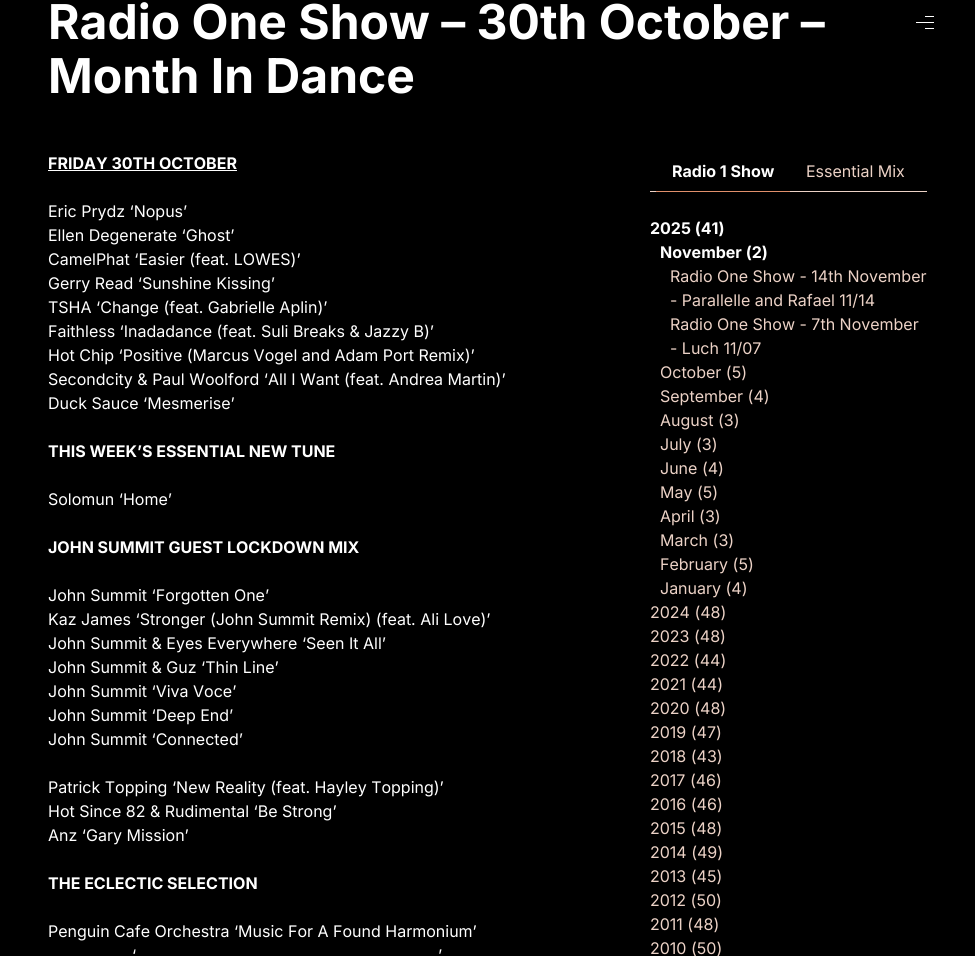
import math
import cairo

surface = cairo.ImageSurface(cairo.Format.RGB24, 975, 956)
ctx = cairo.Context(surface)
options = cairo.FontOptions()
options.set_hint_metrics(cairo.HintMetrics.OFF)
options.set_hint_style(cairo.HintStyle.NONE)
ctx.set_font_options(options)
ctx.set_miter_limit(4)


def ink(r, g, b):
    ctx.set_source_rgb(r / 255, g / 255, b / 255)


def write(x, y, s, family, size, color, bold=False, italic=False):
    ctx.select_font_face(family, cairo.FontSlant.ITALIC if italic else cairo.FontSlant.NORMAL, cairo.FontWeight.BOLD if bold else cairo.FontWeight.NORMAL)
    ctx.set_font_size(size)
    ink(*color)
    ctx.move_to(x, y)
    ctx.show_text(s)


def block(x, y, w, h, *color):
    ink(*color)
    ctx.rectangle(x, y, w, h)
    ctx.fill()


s1 = dict(family="Inter", size=48, color=(255, 255, 255), bold=True)
s2 = dict(family="Inter", size=16, color=(255, 255, 255), bold=True)
s3 = dict(family="Inter", size=16, color=(255, 255, 255))
s4 = dict(family="Inter", size=16, color=(236, 210, 198))

ink(0, 0, 0)
ctx.paint()
write(48, 39, "Radio One Show – 30th October –", **s1)
write(48, 93, "Month In Dance", **s1)
write(48, 169, "FRIDAY 30TH OCTOBER", **s2)
block(48, 170, 189, 1, 255, 255, 255)
write(48, 217, "Eric Prydz ‘Nopus’", **s3)
write(48, 241, "Ellen Degenerate ‘Ghost’", **s3)
write(48, 265, "CamelPhat ‘Easier (feat. LOWES)’", **s3)
write(48, 289, "Gerry Read ‘Sunshine Kissing’", **s3)
write(48, 313, "TSHA ‘Change (feat. Gabrielle Aplin)’", **s3)
write(48, 337, "Faithless ‘Inadadance (feat. Suli Breaks & Jazzy B)’", **s3)
write(48, 361, "Hot Chip ‘Positive (Marcus Vogel and Adam Port Remix)’", **s3)
write(48, 385, "Secondcity & Paul Woolford ‘All I Want (feat. Andrea Martin)’", **s3)
write(48, 409, "Duck Sauce ‘Mesmerise’", **s3)
write(48, 457, "THIS WEEK’S ESSENTIAL NEW TUNE", **s2)
write(48, 505, "Solomun ‘Home’", **s3)
write(48, 553, "JOHN SUMMIT GUEST LOCKDOWN MIX", **s2)
write(48, 601, "John Summit ‘Forgotten One’", **s3)
write(48, 625, "Kaz James ‘Stronger (John Summit Remix) (feat. Ali Love)’", **s3)
write(48, 649, "John Summit & Eyes Everywhere ‘Seen It All’", **s3)
write(48, 673, "John Summit & Guz ‘Thin Line’", **s3)
write(48, 697, "John Summit ‘Viva Voce’", **s3)
write(48, 721, "John Summit ‘Deep End’", **s3)
write(48, 745, "John Summit ‘Connected’", **s3)
write(48, 793, "Patrick Topping ‘New Reality (feat. Hayley Topping)’", **s3)
write(48, 817, "Hot Since 82 & Rudimental ‘Be Strong’", **s3)
write(48, 841, "Anz ‘Gary Mission’", **s3)
write(48, 889, "THE ECLECTIC SELECTION", **s2)
write(48, 937, "Penguin Cafe Orchestra ‘Music For A Found Harmonium’", **s3)
write(132, 961, "‘", **s3)
write(438, 961, "’", **s3)
block(650, 191, 277, 1, 236, 210, 198)
block(656, 191, 134, 1, 225, 144, 108)
write(672, 177, "Radio 1 Show", **s2)
write(806, 177, "Essential Mix", **s4)
write(650, 234, "2025 (41)", **s2)
write(660, 258, "November (2)", **s2)
write(670, 282, "Radio One Show - 14th November", **s4)
write(670, 306, "- Parallelle and Rafael 11/14", **s4)
write(670, 330, "Radio One Show - 7th November", **s4)
write(670, 354, "- Luch 11/07", **s4)
write(660, 378, "October (5)", **s4)
write(660, 402, "September (4)", **s4)
write(660, 426, "August (3)", **s4)
write(660, 450, "July (3)", **s4)
write(660, 474, "June (4)", **s4)
write(660, 498, "May (5)", **s4)
write(660, 522, "April (3)", **s4)
write(660, 546, "March (3)", **s4)
write(660, 570, "February (5)", **s4)
write(660, 594, "January (4)", **s4)
write(650, 618, "2024 (48)", **s4)
write(650, 642, "2023 (48)", **s4)
write(650, 666, "2022 (44)", **s4)
write(650, 690, "2021 (44)", **s4)
write(650, 714, "2020 (48)", **s4)
write(650, 738, "2019 (47)", **s4)
write(650, 762, "2018 (43)", **s4)
write(650, 786, "2017 (46)", **s4)
write(650, 810, "2016 (46)", **s4)
write(650, 834, "2015 (48)", **s4)
write(650, 858, "2014 (49)", **s4)
write(650, 882, "2013 (45)", **s4)
write(650, 906, "2012 (50)", **s4)
write(650, 930, "2011 (48)", **s4)
write(650, 954, "2010 (50)", **s4)
block(916, 22, 18, 1, 255, 255, 255)
block(925, 16, 9, 1, 255, 255, 255)
block(925, 28, 9, 1, 255, 255, 255)
surface.write_to_png("screenshot.png")
